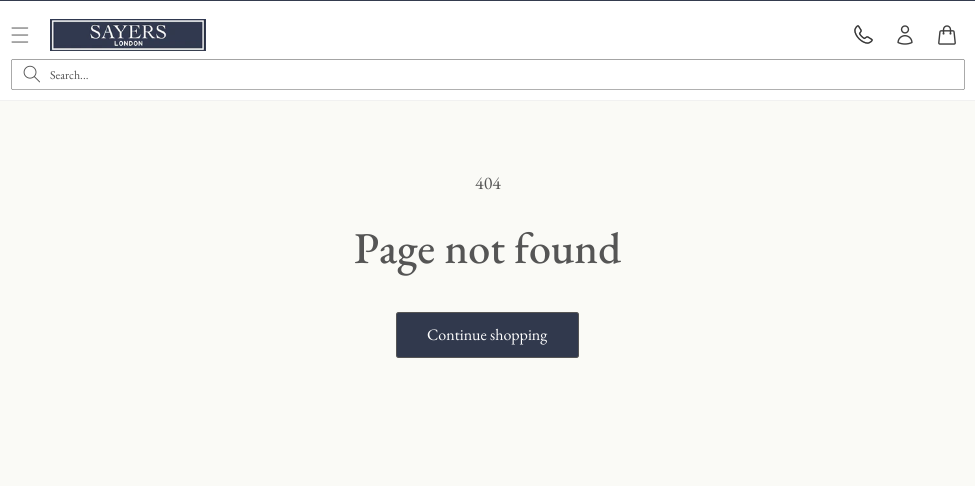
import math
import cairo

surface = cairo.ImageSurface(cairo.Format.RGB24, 975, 486)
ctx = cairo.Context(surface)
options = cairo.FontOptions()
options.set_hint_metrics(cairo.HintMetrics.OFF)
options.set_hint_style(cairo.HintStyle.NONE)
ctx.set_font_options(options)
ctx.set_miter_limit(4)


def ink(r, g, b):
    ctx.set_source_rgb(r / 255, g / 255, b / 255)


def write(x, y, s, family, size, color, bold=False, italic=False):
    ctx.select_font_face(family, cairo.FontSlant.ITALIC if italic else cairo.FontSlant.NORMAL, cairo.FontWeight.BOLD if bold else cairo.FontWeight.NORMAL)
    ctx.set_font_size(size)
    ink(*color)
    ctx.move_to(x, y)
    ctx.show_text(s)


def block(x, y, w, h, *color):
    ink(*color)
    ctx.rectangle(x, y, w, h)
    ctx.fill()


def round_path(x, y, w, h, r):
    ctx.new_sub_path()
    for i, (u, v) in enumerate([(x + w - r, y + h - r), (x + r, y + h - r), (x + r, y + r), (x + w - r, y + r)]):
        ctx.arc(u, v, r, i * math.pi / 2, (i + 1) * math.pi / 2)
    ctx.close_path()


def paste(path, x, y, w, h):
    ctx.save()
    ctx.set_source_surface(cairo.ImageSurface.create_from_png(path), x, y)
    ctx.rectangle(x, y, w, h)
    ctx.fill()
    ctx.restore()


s1 = dict(family="EB Garamond", size=12, color=(85, 85, 85))
s2 = dict(family="EB Garamond", size=18, color=(85, 85, 85))
s3 = dict(family="EB Garamond Medium", size=44, color=(85, 85, 85))
s4 = dict(family="EB Garamond", size=16, color=(255, 255, 255))

ink(250, 250, 246)
ctx.paint()
block(0, 0, 975, 1, 52, 59, 78)
block(0, 1, 975, 99, 255, 255, 255)
block(0, 100, 975, 1, 241, 241, 241)
paste("pic1.png", 11, 27, 18, 16)
paste("pic2.png", 50, 19, 156, 32)
paste("pic3.png", 854, 25, 19, 19)
paste("pic4.png", 897, 25, 16, 20)
paste("pic5.png", 938, 25, 18, 20)
paste("pic6.png", 23, 65, 17, 18)
round_path(11.25, 59.25, 953.5, 30.5, 2.25)
ink(85, 85, 85)
ctx.set_line_width(0.5)
ctx.stroke()
write(50, 79, "Search...", **s1)
write(475, 189, "404", **s2)
write(354, 263, "Page not found", **s3)
ink(49, 57, 77)
round_path(396.5, 312.5, 182, 45, 2)
ctx.fill_preserve()
ink(85, 85, 85)
ctx.set_line_width(1)
ctx.stroke()
write(427, 340, "Continue shopping", **s4)
surface.write_to_png("screenshot.png")
